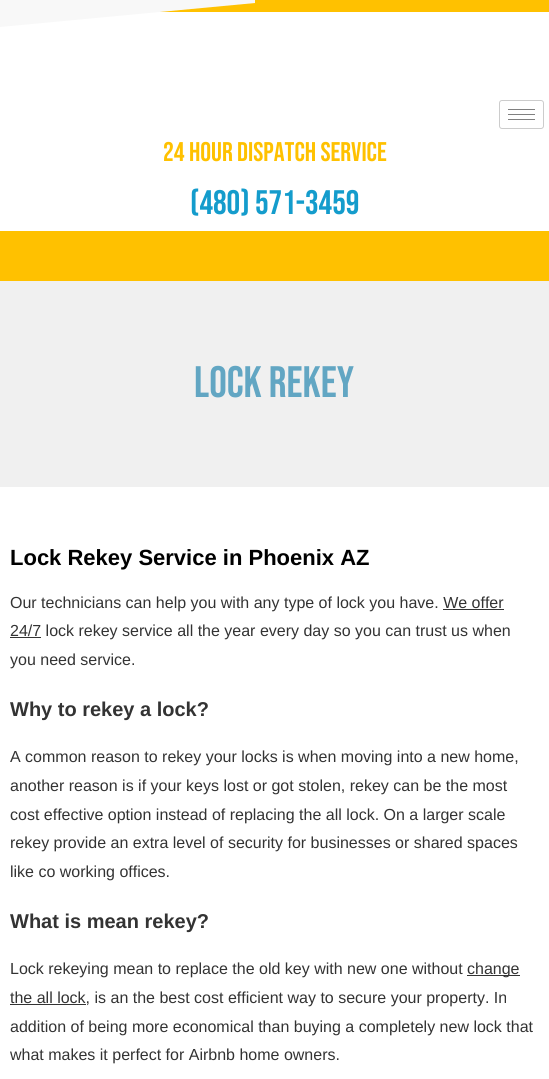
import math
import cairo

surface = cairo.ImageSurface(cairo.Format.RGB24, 549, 1079)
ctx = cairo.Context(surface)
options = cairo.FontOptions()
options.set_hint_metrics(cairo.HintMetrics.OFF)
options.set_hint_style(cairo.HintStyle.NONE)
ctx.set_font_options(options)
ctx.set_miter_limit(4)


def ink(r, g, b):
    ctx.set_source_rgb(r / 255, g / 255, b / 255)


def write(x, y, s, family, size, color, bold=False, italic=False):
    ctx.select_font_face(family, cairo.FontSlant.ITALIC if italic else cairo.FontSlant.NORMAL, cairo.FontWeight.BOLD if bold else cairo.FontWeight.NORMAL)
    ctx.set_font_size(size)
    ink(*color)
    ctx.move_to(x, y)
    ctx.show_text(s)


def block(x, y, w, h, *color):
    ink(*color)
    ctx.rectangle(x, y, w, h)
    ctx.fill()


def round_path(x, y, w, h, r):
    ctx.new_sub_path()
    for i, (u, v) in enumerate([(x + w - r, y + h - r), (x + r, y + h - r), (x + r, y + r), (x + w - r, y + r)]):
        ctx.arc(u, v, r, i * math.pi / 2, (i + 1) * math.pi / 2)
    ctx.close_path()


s1 = dict(family="Bebas Neue", size=27, color=(255, 193, 0))
s2 = dict(family="Bebas Neue", size=34, color=(20, 156, 204))
s3 = dict(family="Bebas Neue", size=44, color=(98, 166, 195))
s4 = dict(family="Liberation Sans", size=22, color=(0, 0, 0), bold=True)
s5 = dict(family="Liberation Sans", size=16, color=(51, 51, 51))
s6 = dict(family="Liberation Sans", size=20, color=(51, 51, 51), bold=True)

ink(255, 255, 255)
ctx.paint()
block(0, 231, 549, 50, 255, 193, 0)
round_path(499.5, 100.5, 44, 28, 2.5)
ink(204, 204, 204)
ctx.set_line_width(1)
ctx.stroke()
block(508, 109, 27, 1, 128, 128, 128)
block(508, 114, 27, 1, 128, 128, 128)
block(508, 119, 27, 1, 128, 128, 128)
block(160, 0, 389, 12, 255, 193, 0)
ink(248, 248, 248)
ctx.new_path()
ctx.move_to(255, 3)
ctx.line_to(255, 0)
ctx.line_to(-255, 0)
ctx.line_to(-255, 51)
ctx.close_path()
ctx.fill()
write(163, 161, "24 Hour Dispatch Service", **s1)
write(190, 214, "(480) 571-3459", **s2)
block(0, 281, 549, 206, 240, 240, 240)
write(194, 397, "Lock Rekey", **s3)
write(10, 565, "Lock Rekey Service in Phoenix AZ", **s4)
write(10, 608, "Our technicians can help you with any type of lock you have. We offer", **s5)
block(10, 637, 31, 1, 51, 51, 51)
write(10, 636, "24/7 lock rekey service all the year every day so you can trust us when", **s5)
block(443, 609, 61, 1, 51, 51, 51)
write(10, 665, "you need service.", **s5)
write(10, 716, "Why to rekey a lock?", **s6)
write(10, 762, "A common reason to rekey your locks is when moving into a new home,", **s5)
write(10, 791, "another reason is if your keys lost or got stolen, rekey can be the most", **s5)
write(10, 820, "cost effective option instead of replacing the all lock. On a larger scale", **s5)
write(10, 848, "rekey provide an extra level of security for businesses or shared spaces", **s5)
write(10, 877, "like co working offices.", **s5)
write(10, 928, "What is mean rekey?", **s6)
write(10, 974, "Lock rekeying mean to replace the old key with new one without", **s5)
block(467, 975, 53, 1, 51, 51, 51)
write(467, 974, "change", **s5)
block(10, 1004, 76, 1, 51, 51, 51)
write(10, 1003, "the all lock, is an the best cost efficient way to secure your property. In", **s5)
write(10, 1032, "addition of being more economical than buying a completely new lock that", **s5)
write(10, 1060, "what makes it perfect for Airbnb home owners.", **s5)
surface.write_to_png("screenshot.png")
